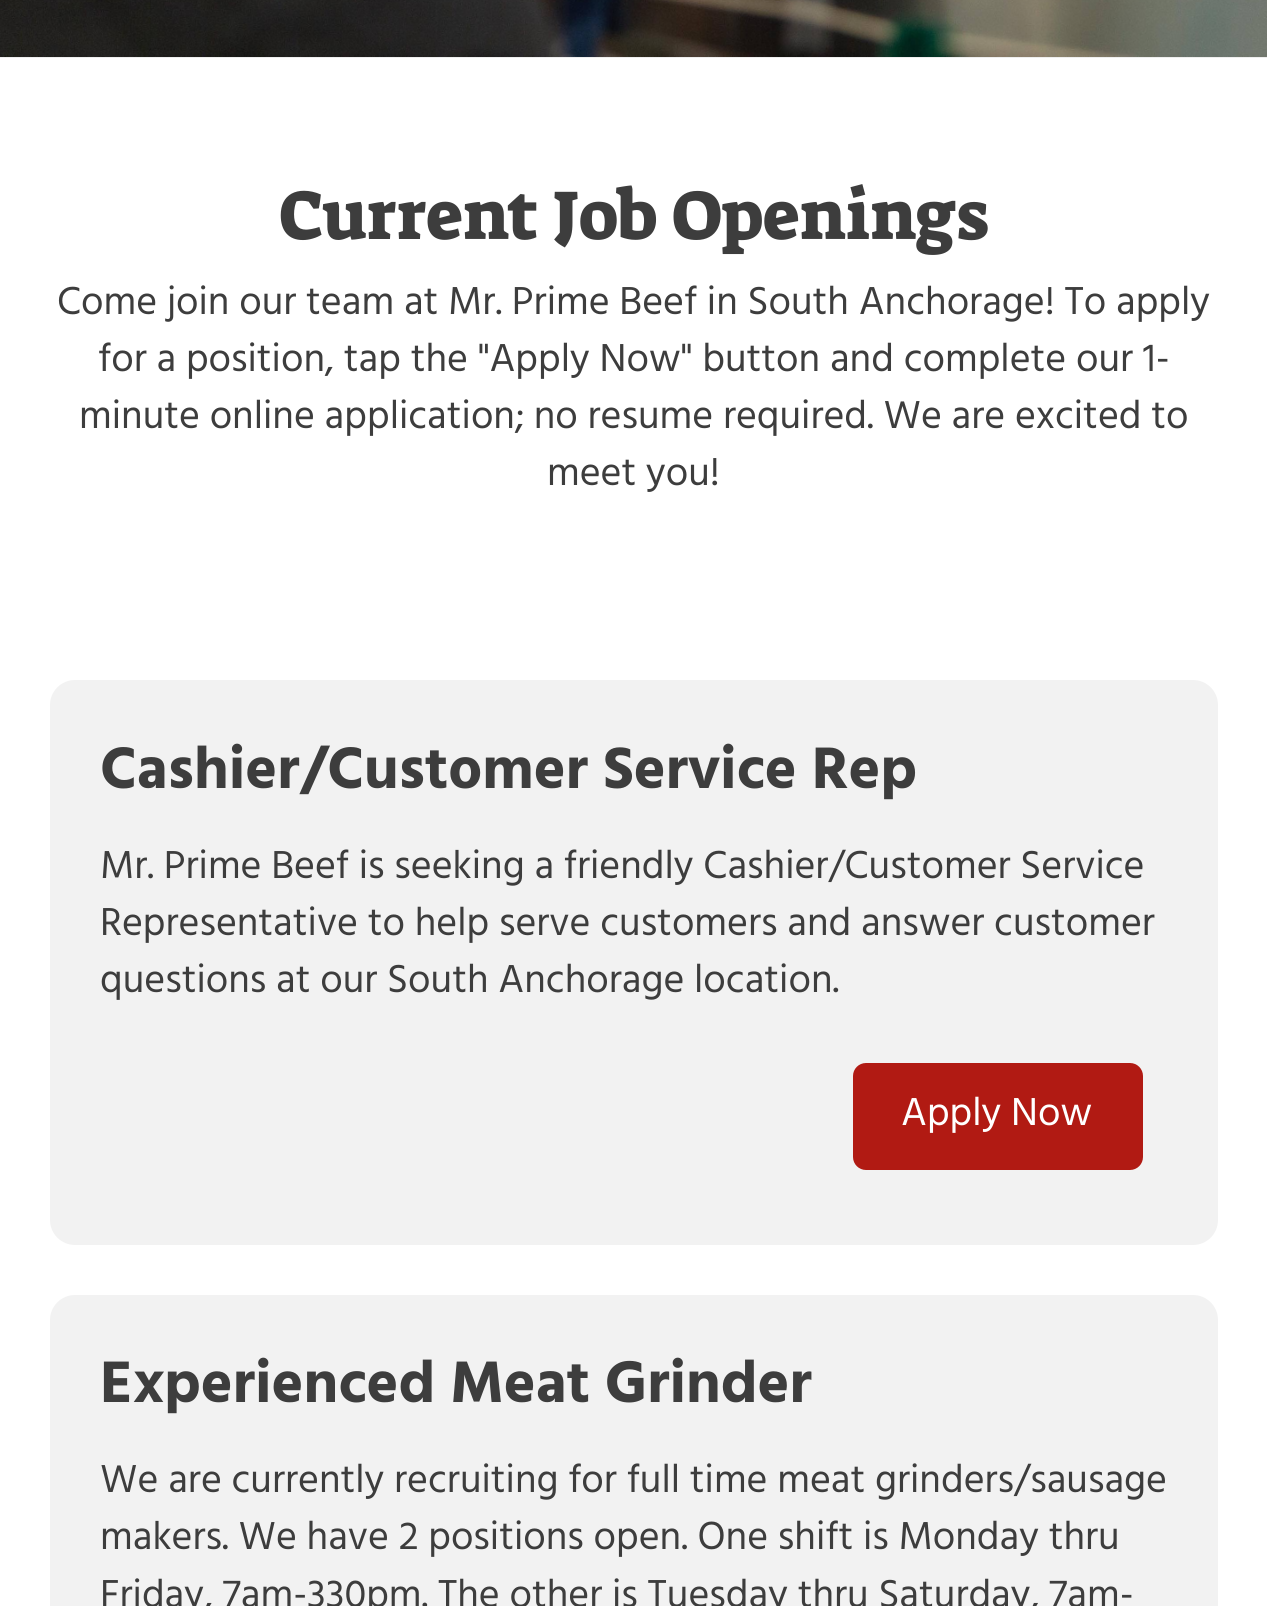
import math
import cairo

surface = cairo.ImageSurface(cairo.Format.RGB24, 1267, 1606)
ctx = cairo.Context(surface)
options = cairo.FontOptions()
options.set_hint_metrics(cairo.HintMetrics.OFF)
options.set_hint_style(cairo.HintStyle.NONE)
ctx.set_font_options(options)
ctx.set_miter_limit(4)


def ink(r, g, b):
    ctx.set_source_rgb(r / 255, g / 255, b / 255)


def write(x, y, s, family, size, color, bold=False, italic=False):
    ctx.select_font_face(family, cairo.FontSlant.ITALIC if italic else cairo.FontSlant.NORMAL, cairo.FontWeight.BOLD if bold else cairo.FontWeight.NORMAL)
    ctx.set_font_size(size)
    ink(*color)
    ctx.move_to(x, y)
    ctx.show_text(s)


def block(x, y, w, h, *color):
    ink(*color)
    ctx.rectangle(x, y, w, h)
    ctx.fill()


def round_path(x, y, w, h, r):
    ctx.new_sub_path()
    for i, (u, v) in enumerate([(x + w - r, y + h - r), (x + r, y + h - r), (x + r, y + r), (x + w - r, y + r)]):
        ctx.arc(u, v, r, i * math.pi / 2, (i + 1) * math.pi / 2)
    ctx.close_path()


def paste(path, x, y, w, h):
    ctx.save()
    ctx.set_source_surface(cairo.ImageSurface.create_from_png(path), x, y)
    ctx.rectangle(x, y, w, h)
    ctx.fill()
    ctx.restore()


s1 = dict(family="Suez One", size=70, color=(61, 61, 61))
s2 = dict(family="Hind", size=40, color=(61, 61, 61))
s3 = dict(family="Hind", size=60, color=(61, 61, 61), bold=True)
s4 = dict(family="Hind", size=40, color=(255, 255, 255))

ink(255, 255, 255)
ctx.paint()
block(0, 57, 1267, 1, 238, 238, 238)
paste("pic1.png", 0, 0, 1267, 57)
write(279, 239, "Current Job Openings", **s1)
write(57, 314, "Come join our team at Mr. Prime Beef in South Anchorage! To apply", **s2)
write(98, 371, "for a position, tap the \"Apply Now\" button and complete our 1-", **s2)
write(79, 428, "minute online application; no resume required. We are excited to", **s2)
write(547, 485, "meet you!", **s2)
ink(242, 242, 242)
round_path(50, 680, 1168, 565, 25)
ctx.fill()
write(100, 788, "Cashier/Customer Service Rep", **s3)
write(100, 878, "Mr. Prime Beef is seeking a friendly Cashier/Customer Service", **s2)
write(100, 935, "Representative to help serve customers and answer customer", **s2)
write(100, 992, "questions at our South Anchorage location.", **s2)
ink(177, 26, 19)
round_path(853, 1063, 290, 107, 13)
ctx.fill()
write(901, 1125, "Apply Now", **s4)
ink(242, 242, 242)
round_path(50, 1295, 1168, 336, 25)
ctx.fill()
write(100, 1402, "Experienced Meat Grinder", **s3)
write(100, 1492, "We are currently recruiting for full time meat grinders/sausage", **s2)
write(100, 1549, "makers. We have 2 positions open. One shift is Monday thru", **s2)
write(100, 1607, "Friday, 7am-330pm. The other is Tuesday thru Saturday, 7am-", **s2)
surface.write_to_png("screenshot.png")
